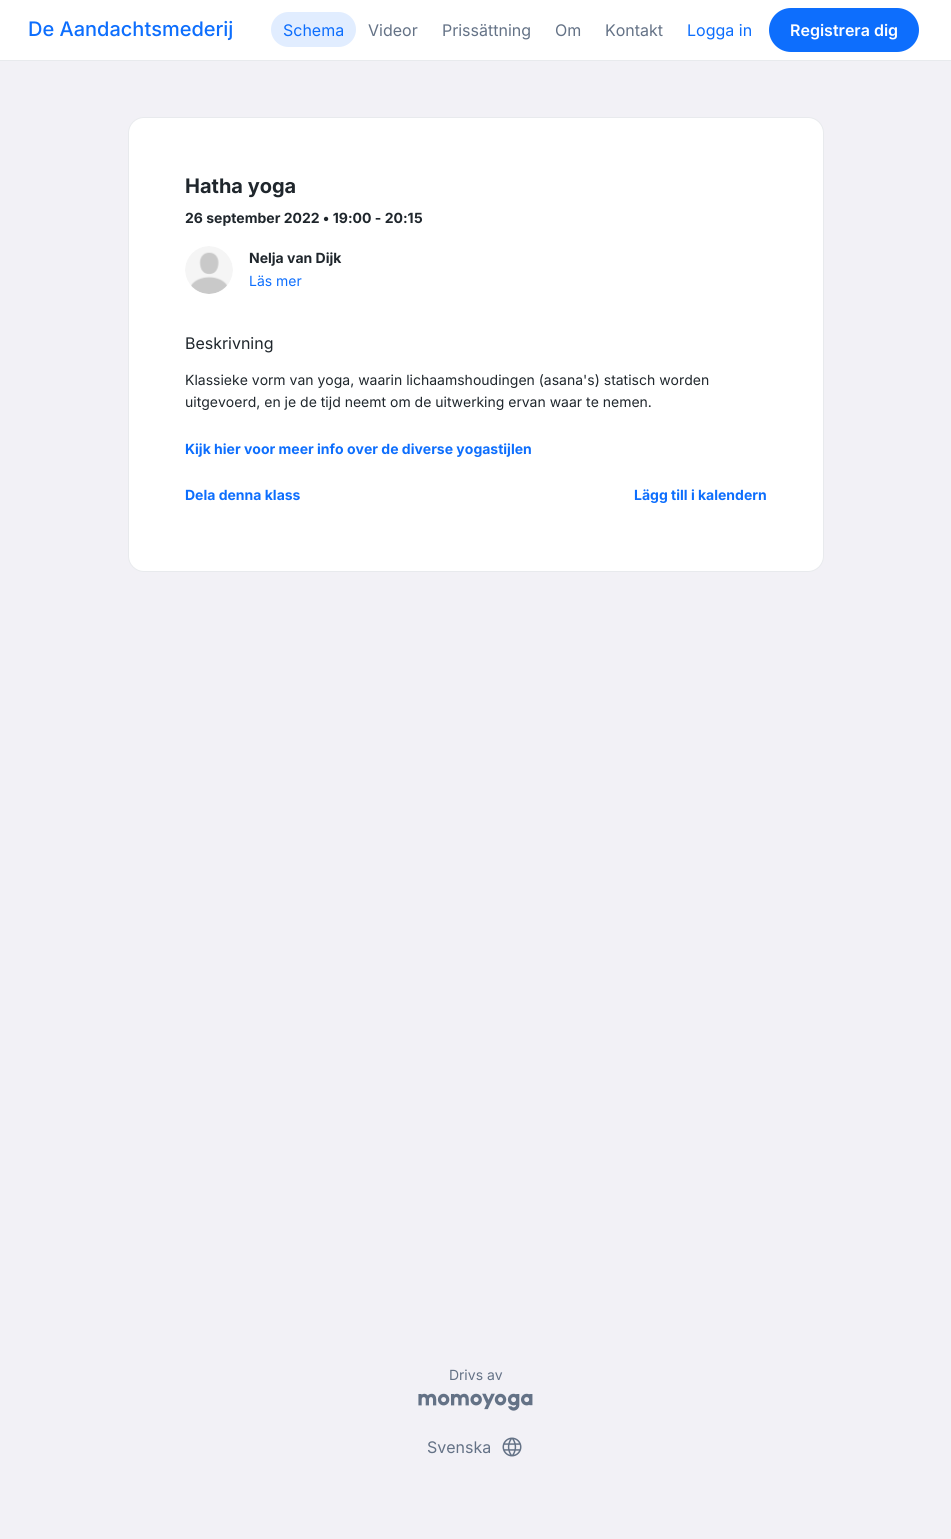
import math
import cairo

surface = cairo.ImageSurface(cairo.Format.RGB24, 951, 1539)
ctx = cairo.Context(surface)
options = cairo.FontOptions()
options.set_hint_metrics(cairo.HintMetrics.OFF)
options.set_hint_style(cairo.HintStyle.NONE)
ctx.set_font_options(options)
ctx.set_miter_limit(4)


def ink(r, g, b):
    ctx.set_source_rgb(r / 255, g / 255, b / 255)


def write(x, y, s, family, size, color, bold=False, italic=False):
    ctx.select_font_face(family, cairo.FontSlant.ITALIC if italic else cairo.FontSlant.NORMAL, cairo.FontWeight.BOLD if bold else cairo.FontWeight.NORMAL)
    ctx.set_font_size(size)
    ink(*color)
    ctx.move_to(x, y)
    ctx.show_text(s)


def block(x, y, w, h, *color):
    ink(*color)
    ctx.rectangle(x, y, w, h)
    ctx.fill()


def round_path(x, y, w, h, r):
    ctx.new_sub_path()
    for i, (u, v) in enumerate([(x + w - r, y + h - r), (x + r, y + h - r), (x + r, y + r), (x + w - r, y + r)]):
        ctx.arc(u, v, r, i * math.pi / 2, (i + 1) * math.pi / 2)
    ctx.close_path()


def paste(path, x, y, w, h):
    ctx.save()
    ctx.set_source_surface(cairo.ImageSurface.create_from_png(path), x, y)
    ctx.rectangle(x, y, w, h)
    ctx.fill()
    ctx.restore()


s1 = dict(family="Inter Medium", size=20, color=(13, 110, 253))
s2 = dict(family="Inter", size=16, color=(13, 110, 253))
s3 = dict(family="Inter", size=16, color=(100, 114, 134))
s4 = dict(family="Inter SemiBold", size=16, color=(255, 255, 255))
s5 = dict(family="Inter", size=20, color=(31, 38, 44), bold=True)
s6 = dict(family="Inter", size=14, color=(31, 38, 44), bold=True)
s7 = dict(family="Inter", size=14, color=(13, 110, 253))
s8 = dict(family="Inter", size=16, color=(31, 38, 44))
s9 = dict(family="Inter", size=14, color=(31, 38, 44))
s10 = dict(family="Inter", size=14, color=(13, 110, 253), bold=True)
s11 = dict(family="Inter", size=14, color=(100, 114, 134))

ink(242, 241, 246)
ctx.paint()
block(0, 0, 951, 60, 255, 255, 255)
block(0, 60, 951, 1, 232, 234, 237)
write(28, 36, "De Aandachtsmederij", **s1)
ink(225, 237, 255)
round_path(271, 12, 85, 35, 17.5)
ctx.fill()
write(283, 36, "Schema", **s2)
write(368, 36, "Videor", **s3)
write(442, 36, "Prissättning", **s3)
write(555, 36, "Om", **s3)
write(605, 36, "Kontakt", **s3)
write(687, 36, "Logga in", **s2)
round_path(770, 9, 148, 42, 21)
ctx.fill_preserve()
ctx.stroke()
write(790, 36, "Registrera dig", **s4)
round_path(128.5, 117.5, 695, 454, 15.5)
ctx.fill_preserve()
ink(232, 234, 237)
ctx.set_line_width(1)
ctx.stroke()
write(185, 193, "Hatha yoga", **s5)
write(185, 223, "26 september 2022 • 19:00 - 20:15", **s6)
paste("pic1.png", 185, 246, 48, 48)
write(249, 263, "Nelja van Dijk", **s6)
write(249, 286, "Läs mer", **s7)
write(185, 349, "Beskrivning", **s8)
write(185, 385, "Klassieke vorm van yoga, waarin lichaamshoudingen (asana's) statisch worden", **s9)
write(185, 407, "uitgevoerd, en je de tijd neemt om de uitwerking ervan waar te nemen.", **s9)
write(185, 454, "Kijk hier voor meer info over de diverse yogastijlen", **s10)
write(185, 500, "Dela denna klass", **s10)
write(634, 500, "Lägg till i kalendern", **s10)
write(449, 1380, "Drivs av", **s11)
paste("pic2.png", 418, 1393, 115, 18)
write(427, 1453, "Svenska", **s3)
paste("pic3.png", 502, 1437, 20, 20)
surface.write_to_png("screenshot.png")
